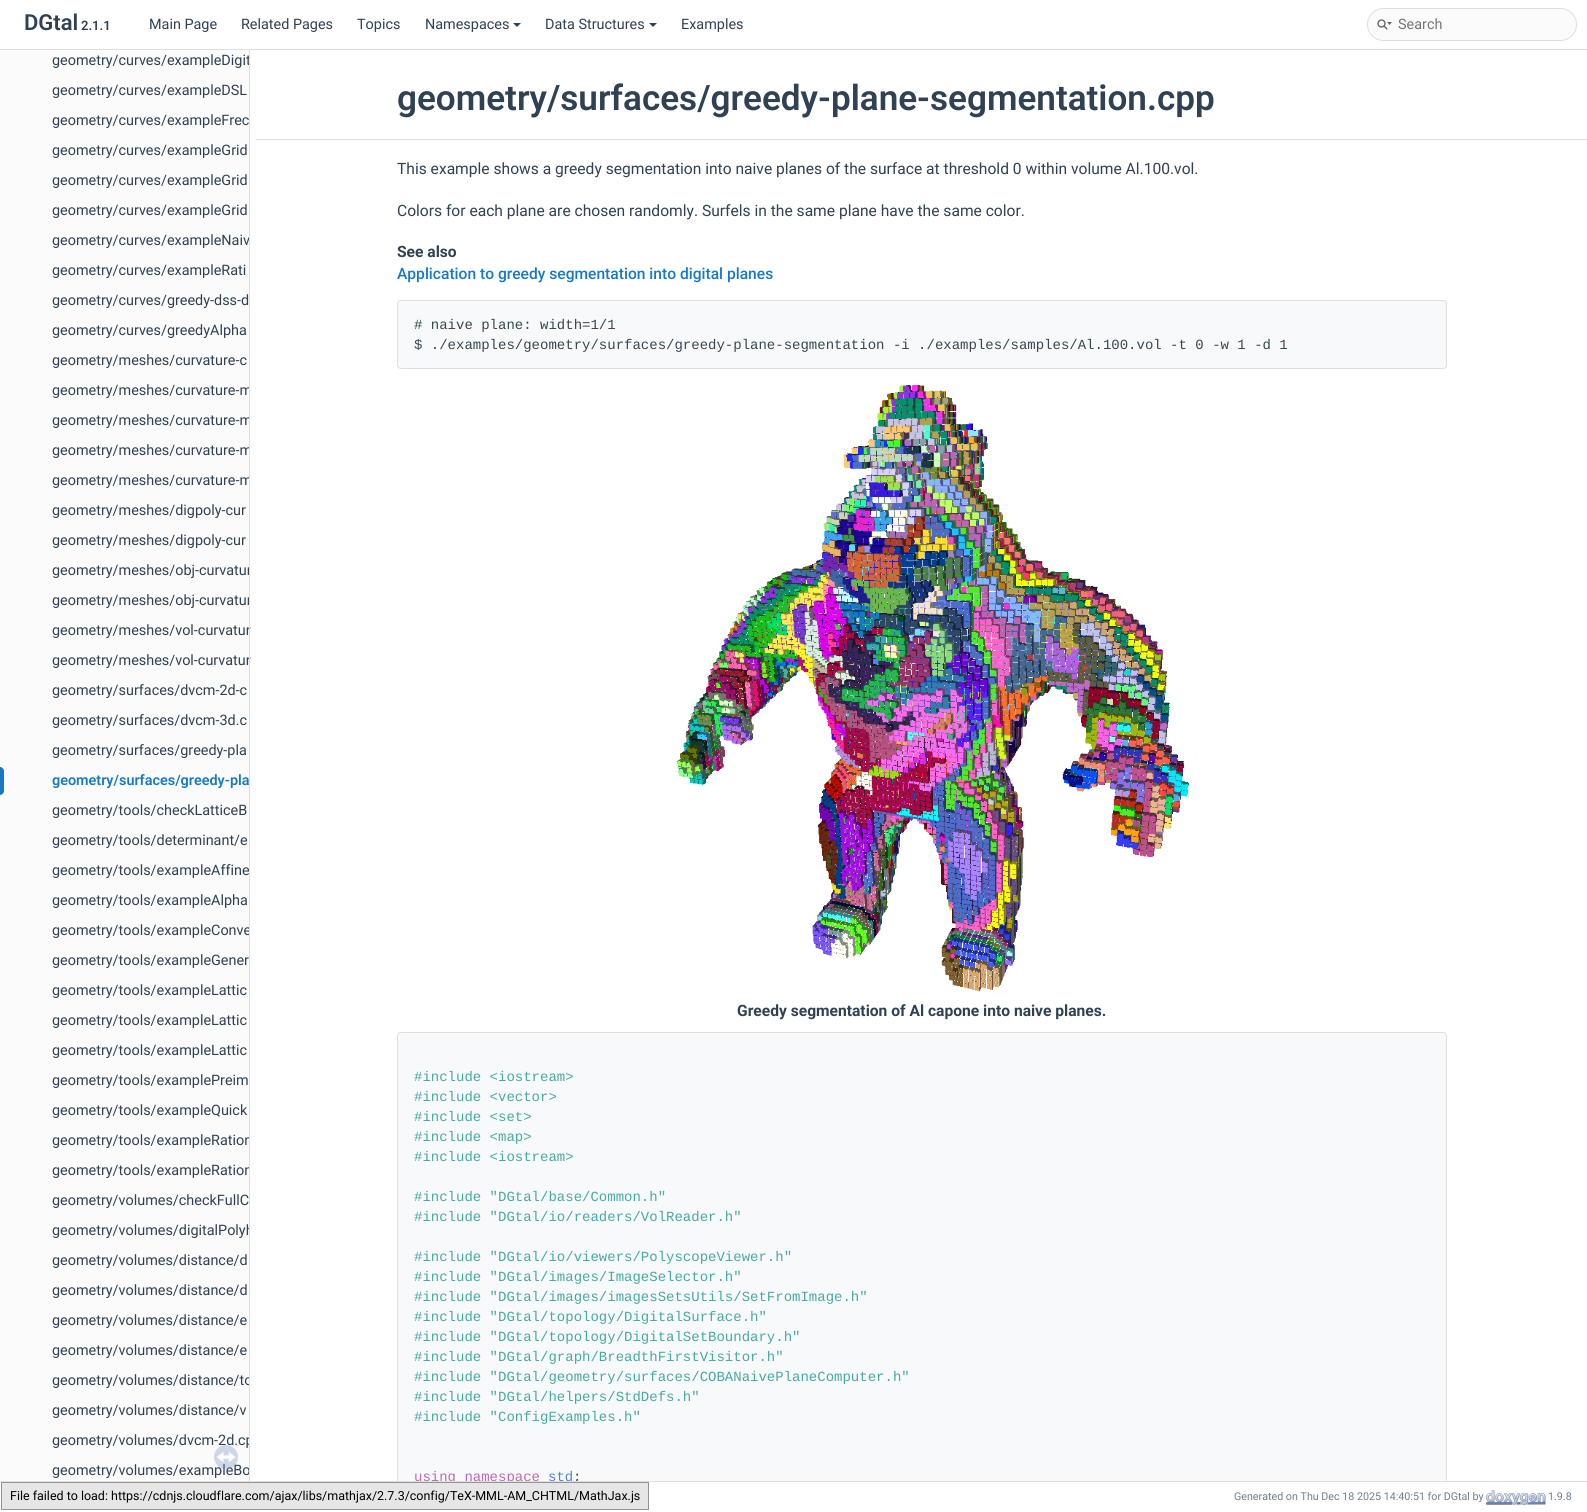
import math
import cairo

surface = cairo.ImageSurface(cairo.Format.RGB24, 1587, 1512)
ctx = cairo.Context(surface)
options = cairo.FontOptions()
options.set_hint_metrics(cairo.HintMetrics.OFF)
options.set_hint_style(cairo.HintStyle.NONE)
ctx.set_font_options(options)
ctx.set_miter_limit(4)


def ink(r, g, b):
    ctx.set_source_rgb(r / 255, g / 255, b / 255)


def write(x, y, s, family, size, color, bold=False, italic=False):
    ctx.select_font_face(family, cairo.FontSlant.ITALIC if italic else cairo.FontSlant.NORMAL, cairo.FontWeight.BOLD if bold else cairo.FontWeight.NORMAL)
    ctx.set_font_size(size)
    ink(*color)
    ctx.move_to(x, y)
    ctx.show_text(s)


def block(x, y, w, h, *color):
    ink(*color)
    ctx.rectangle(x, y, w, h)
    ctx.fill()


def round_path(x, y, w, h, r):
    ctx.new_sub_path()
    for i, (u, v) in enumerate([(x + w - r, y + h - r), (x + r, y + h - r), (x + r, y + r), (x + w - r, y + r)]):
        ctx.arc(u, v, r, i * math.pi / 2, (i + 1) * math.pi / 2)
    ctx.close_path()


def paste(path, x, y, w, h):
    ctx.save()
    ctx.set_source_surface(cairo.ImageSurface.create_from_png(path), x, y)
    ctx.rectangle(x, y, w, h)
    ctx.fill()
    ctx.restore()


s1 = dict(family="Roboto SemiBold", size=22, color=(47, 65, 83))
s2 = dict(family="Roboto SemiBold", size=13, color=(47, 65, 83))
s3 = dict(family="Roboto", size=14.4, color=(47, 65, 83))
s4 = dict(family="Roboto", size=14.4, color=(117, 117, 117))
s5 = dict(family="Roboto SemiBold", size=14.4, color=(23, 121, 196))
s6 = dict(family="Roboto SemiBold", size=35.1, color=(47, 65, 83))
s7 = dict(family="Roboto", size=15.6, color=(47, 65, 83))
s8 = dict(family="Roboto", size=15.6, color=(47, 65, 83), bold=True)
s9 = dict(family="Roboto Medium", size=15.6, color=(23, 121, 196))
s10 = dict(family="Liberation Mono", size=14, color=(55, 71, 79))
s11 = dict(family="Liberation Mono", size=14, color=(70, 170, 165))
s12 = dict(family="Liberation Mono", size=14, color=(187, 107, 178))
s13 = dict(family="Liberation Mono", size=14, color=(83, 131, 214))
s14 = dict(family="Roboto", size=12.48, color=(0, 0, 0))
s15 = dict(family="Roboto", size=10.7, color=(111, 126, 142))

ink(255, 255, 255)
ctx.paint()
block(0, 49, 1587, 1, 222, 222, 222)
write(24, 30, "DGtal", **s1)
write(81, 30, "2.1.1", **s2)
write(149, 29, "Main Page", **s3)
write(241, 29, "Related Pages", **s3)
write(357, 29, "Topics", **s3)
write(425, 29, "Namespaces", **s3)
ctx.new_path()
ctx.move_to(513, 23)
ctx.line_to(521, 23)
ctx.line_to(517, 27)
ctx.close_path()
ctx.fill()
write(545, 29, "Data Structures", **s3)
ctx.new_path()
ctx.move_to(649, 23)
ctx.line_to(657, 23)
ctx.line_to(653, 27)
ctx.close_path()
ctx.fill()
write(681, 29, "Examples", **s3)
ink(251, 251, 251)
round_path(1367.5, 8.5, 209, 32, 16)
ctx.fill_preserve()
ink(222, 222, 222)
ctx.set_line_width(1)
ctx.stroke()
paste("pic1.png", 1377, 19, 15, 11)
write(1398, 29, "Search", **s4)
block(0, 50, 249, 1431, 251, 251, 251)
write(52, 65, "geometry/curves/exampleDigit", **s3)
write(52, 95, "geometry/curves/exampleDSL", **s3)
write(52, 125, "geometry/curves/exampleFrec", **s3)
write(52, 155, "geometry/curves/exampleGrid", **s3)
write(52, 185, "geometry/curves/exampleGrid", **s3)
write(52, 215, "geometry/curves/exampleGrid", **s3)
write(52, 245, "geometry/curves/exampleNaiv", **s3)
write(52, 275, "geometry/curves/exampleRati", **s3)
write(52, 305, "geometry/curves/greedy-dss-d", **s3)
write(52, 335, "geometry/curves/greedyAlpha", **s3)
write(52, 365, "geometry/meshes/curvature-c", **s3)
ctx.save()
ctx.rectangle(0, 50, 249, 1431)
ctx.clip()
write(52, 395, "geometry/meshes/curvature-m", **s3)
write(52, 425, "geometry/meshes/curvature-m", **s3)
write(52, 455, "geometry/meshes/curvature-m", **s3)
write(52, 485, "geometry/meshes/curvature-m", **s3)
ctx.restore()
write(52, 515, "geometry/meshes/digpoly-cur", **s3)
write(52, 545, "geometry/meshes/digpoly-cur", **s3)
ctx.save()
ctx.rectangle(0, 50, 249, 1431)
ctx.clip()
write(52, 575, "geometry/meshes/obj-curvatur", **s3)
write(52, 605, "geometry/meshes/obj-curvatur", **s3)
ctx.restore()
write(52, 635, "geometry/meshes/vol-curvatur", **s3)
write(52, 665, "geometry/meshes/vol-curvatur", **s3)
write(52, 695, "geometry/surfaces/dvcm-2d-c", **s3)
write(52, 725, "geometry/surfaces/dvcm-3d.c", **s3)
write(52, 755, "geometry/surfaces/greedy-pla", **s3)
ink(23, 121, 196)
ctx.new_path()
ctx.move_to(0, 767)
ctx.curve_to(2, 767, 4, 769, 4, 771)
ctx.line_to(4, 791)
ctx.curve_to(4, 793, 2, 795, 0, 795)
ctx.close_path()
ctx.fill()
write(52, 785, "geometry/surfaces/greedy-pla", **s5)
write(52, 815, "geometry/tools/checkLatticeB", **s3)
write(52, 845, "geometry/tools/determinant/e", **s3)
write(52, 875, "geometry/tools/exampleAffine", **s3)
write(52, 905, "geometry/tools/exampleAlpha", **s3)
ctx.save()
ctx.rectangle(0, 50, 249, 1431)
ctx.clip()
write(52, 935, "geometry/tools/exampleConve", **s3)
ctx.restore()
write(52, 965, "geometry/tools/exampleGener", **s3)
write(52, 995, "geometry/tools/exampleLattic", **s3)
write(52, 1025, "geometry/tools/exampleLattic", **s3)
write(52, 1055, "geometry/tools/exampleLattic", **s3)
write(52, 1085, "geometry/tools/examplePreim", **s3)
write(52, 1115, "geometry/tools/exampleQuick", **s3)
ctx.save()
ctx.rectangle(0, 50, 249, 1431)
ctx.clip()
write(52, 1145, "geometry/tools/exampleRation", **s3)
write(52, 1175, "geometry/tools/exampleRation", **s3)
ctx.restore()
write(52, 1205, "geometry/volumes/checkFullC", **s3)
ctx.save()
ctx.rectangle(0, 50, 249, 1431)
ctx.clip()
write(52, 1235, "geometry/volumes/digitalPolyh", **s3)
ctx.restore()
write(52, 1265, "geometry/volumes/distance/d", **s3)
write(52, 1295, "geometry/volumes/distance/d", **s3)
write(52, 1325, "geometry/volumes/distance/e", **s3)
write(52, 1355, "geometry/volumes/distance/e", **s3)
ctx.save()
ctx.rectangle(0, 50, 249, 1431)
ctx.clip()
write(52, 1385, "geometry/volumes/distance/to", **s3)
ctx.restore()
write(52, 1415, "geometry/volumes/distance/v", **s3)
ctx.save()
ctx.rectangle(0, 50, 249, 1431)
ctx.clip()
write(52, 1445, "geometry/volumes/dvcm-2d.cp", **s3)
ctx.restore()
write(52, 1475, "geometry/volumes/exampleBo", **s3)
paste("pic2.png", 214, 1445, 24, 24)
block(249, 50, 1, 1431, 222, 222, 222)
block(256, 139, 1331, 1, 222, 222, 222)
write(397, 110, "geometry/surfaces/greedy-plane-segmentation.cpp", **s6)
write(397, 174, "This example shows a greedy segmentation into naive planes of the surface at threshold 0 within volume Al.100.vol.", **s7)
write(397, 216, "Colors for each plane are chosen randomly. Surfels in the same plane have the same color.", **s7)
write(397, 257, "See also", **s8)
write(397, 279, "Application to greedy segmentation into digital planes", **s9)
ink(248, 249, 250)
round_path(397.5, 300.5, 1049, 68, 3.5)
ctx.fill_preserve()
ink(222, 222, 222)
ctx.stroke()
write(414, 329, "# naive plane: width=1/1", **s10)
write(414, 349, "$ ./examples/geometry/surfaces/greedy-plane-segmentation -i ./examples/samples/Al.100.vol -t 0 -w 1 -d 1", **s10)
paste("pic3.png", 677, 385, 512, 607)
write(737, 1016, "Greedy segmentation of Al capone into naive planes.", **s8)
ink(248, 249, 250)
ctx.new_path()
ctx.move_to(401, 1032)
ctx.line_to(1443, 1032)
ctx.curve_to(1445, 1032, 1447, 1034, 1447, 1036)
ctx.line_to(1447, 1481)
ctx.line_to(397, 1481)
ctx.line_to(397, 1036)
ctx.curve_to(397, 1034, 399, 1032, 401, 1032)
ctx.close_path()
ctx.fill()
ctx.save()
ctx.rectangle(256, 50, 1331, 1431)
ctx.clip()
round_path(397.5, 1032.5, 1049, 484, 3.5)
ink(222, 222, 222)
ctx.stroke()
ctx.restore()
write(414, 1081, "#include <iostream>", **s11)
write(414, 1101, "#include <vector>", **s11)
write(414, 1121, "#include <set>", **s11)
write(414, 1141, "#include <map>", **s11)
write(414, 1161, "#include <iostream>", **s11)
write(414, 1201, "#include \"DGtal/base/Common.h\"", **s11)
write(414, 1221, "#include \"DGtal/io/readers/VolReader.h\"", **s11)
write(414, 1261, "#include \"DGtal/io/viewers/PolyscopeViewer.h\"", **s11)
write(414, 1281, "#include \"DGtal/images/ImageSelector.h\"", **s11)
write(414, 1301, "#include \"DGtal/images/imagesSetsUtils/SetFromImage.h\"", **s11)
write(414, 1321, "#include \"DGtal/topology/DigitalSurface.h\"", **s11)
write(414, 1341, "#include \"DGtal/topology/DigitalSetBoundary.h\"", **s11)
write(414, 1361, "#include \"DGtal/graph/BreadthFirstVisitor.h\"", **s11)
write(414, 1381, "#include \"DGtal/geometry/surfaces/COBANaivePlaneComputer.h\"", **s11)
write(414, 1401, "#include \"DGtal/helpers/StdDefs.h\"", **s11)
write(414, 1421, "#include \"ConfigExamples.h\"", **s11)
write(414, 1481, "using namespace", **s12)
write(548, 1481, "std", **s13)
write(573, 1481, ";", **s10)
ink(230, 230, 230)
ctx.rectangle(1.5, 1482.5, 647, 27)
ctx.fill_preserve()
ink(149, 149, 149)
ctx.stroke()
write(10, 1500, "File failed to load: https://cdnjs.cloudflare.com/ajax/libs/mathjax/2.7.3/config/TeX-MML-AM_CHTML/MathJax.js", **s14)
block(0, 1481, 1587, 1, 222, 222, 222)
write(1234, 1500, "Generated on Thu Dec 18 2025 14:40:51 for DGtal by", **s15)
paste("pic4.png", 1486, 1490, 60, 16)
write(1548, 1500, "1.9.8", **s15)
surface.write_to_png("screenshot.png")
